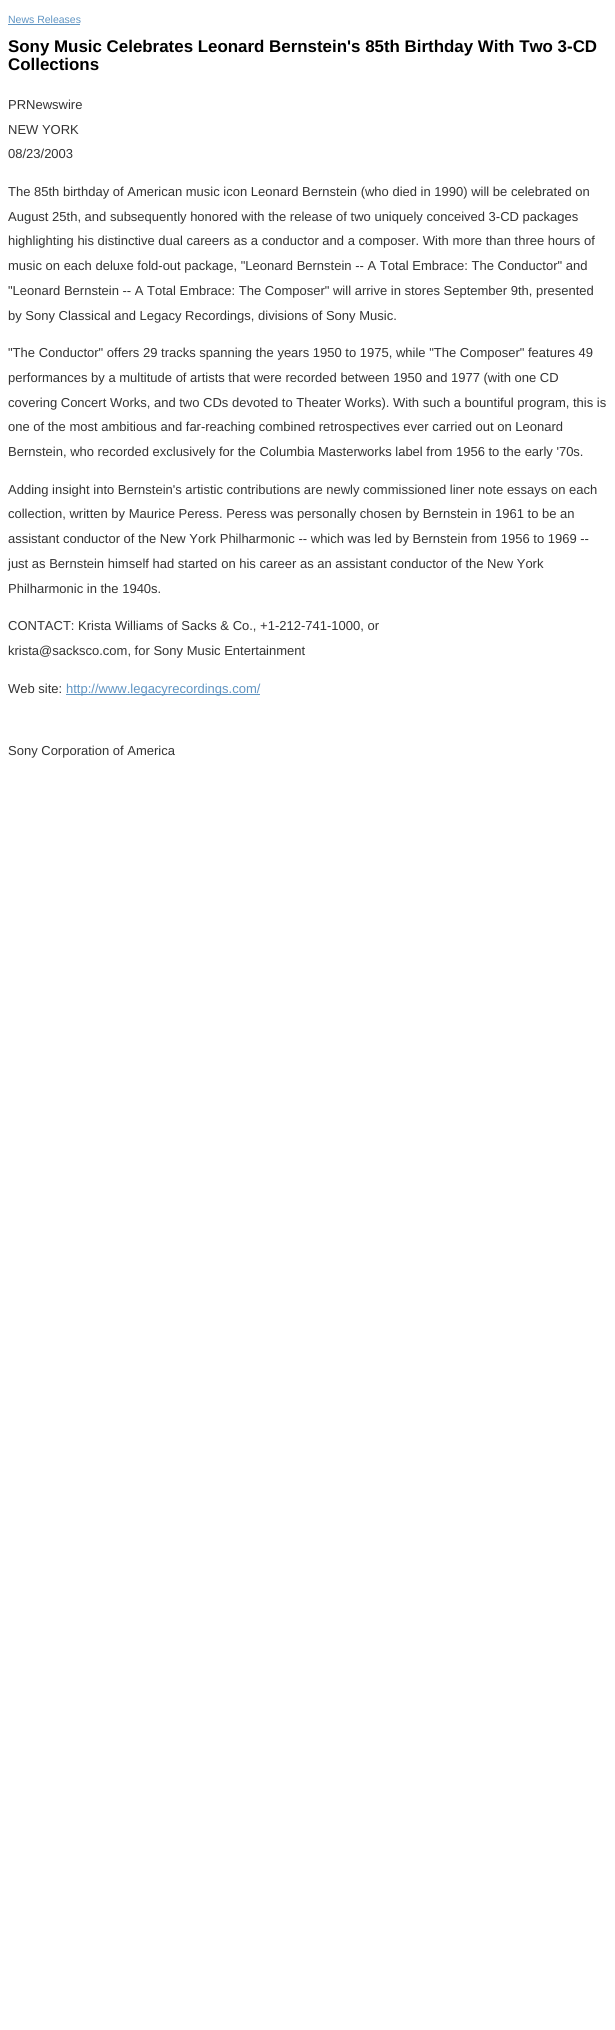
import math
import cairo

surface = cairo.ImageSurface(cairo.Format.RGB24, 615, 2030)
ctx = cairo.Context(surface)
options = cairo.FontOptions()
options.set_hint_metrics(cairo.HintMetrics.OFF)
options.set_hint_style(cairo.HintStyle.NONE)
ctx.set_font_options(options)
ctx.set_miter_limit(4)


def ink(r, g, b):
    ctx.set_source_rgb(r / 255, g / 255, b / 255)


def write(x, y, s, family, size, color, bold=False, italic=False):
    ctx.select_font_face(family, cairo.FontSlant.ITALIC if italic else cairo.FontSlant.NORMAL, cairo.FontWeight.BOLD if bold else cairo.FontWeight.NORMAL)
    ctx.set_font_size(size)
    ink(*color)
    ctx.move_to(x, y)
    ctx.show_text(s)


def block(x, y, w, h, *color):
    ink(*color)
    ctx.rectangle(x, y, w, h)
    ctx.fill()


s1 = dict(family="Liberation Sans", size=10.5, color=(96, 149, 195))
s2 = dict(family="Liberation Sans", size=16.9, color=(0, 0, 0), bold=True)
s3 = dict(family="Liberation Sans", size=13, color=(51, 51, 51))
s4 = dict(family="Liberation Sans", size=13, color=(96, 149, 195))

ink(255, 255, 255)
ctx.paint()
write(8, 23, "News Releases", **s1)
block(8, 24, 72, 1, 96, 149, 195)
write(8, 52, "Sony Music Celebrates Leonard Bernstein's 85th Birthday With Two 3-CD", **s2)
write(8, 70, "Collections", **s2)
write(8, 109, "PRNewswire", **s3)
write(8, 134, "NEW YORK", **s3)
write(8, 158, "08/23/2003", **s3)
write(8, 196, "The 85th birthday of American music icon Leonard Bernstein (who died in 1990) will be celebrated on", **s3)
write(8, 221, "August 25th, and subsequently honored with the release of two uniquely conceived 3-CD packages", **s3)
write(8, 245, "highlighting his distinctive dual careers as a conductor and a composer. With more than three hours of", **s3)
write(8, 270, "music on each deluxe fold-out package, \"Leonard Bernstein -- A Total Embrace: The Conductor\" and", **s3)
write(8, 295, "\"Leonard Bernstein -- A Total Embrace: The Composer\" will arrive in stores September 9th, presented", **s3)
write(8, 320, "by Sony Classical and Legacy Recordings, divisions of Sony Music.", **s3)
write(8, 357, "\"The Conductor\" offers 29 tracks spanning the years 1950 to 1975, while \"The Composer\" features 49", **s3)
write(8, 382, "performances by a multitude of artists that were recorded between 1950 and 1977 (with one CD", **s3)
write(8, 407, "covering Concert Works, and two CDs devoted to Theater Works). With such a bountiful program, this is", **s3)
write(8, 431, "one of the most ambitious and far-reaching combined retrospectives ever carried out on Leonard", **s3)
write(8, 456, "Bernstein, who recorded exclusively for the Columbia Masterworks label from 1956 to the early '70s.", **s3)
write(8, 494, "Adding insight into Bernstein's artistic contributions are newly commissioned liner note essays on each", **s3)
write(8, 518, "collection, written by Maurice Peress. Peress was personally chosen by Bernstein in 1961 to be an", **s3)
write(8, 543, "assistant conductor of the New York Philharmonic -- which was led by Bernstein from 1956 to 1969 --", **s3)
write(8, 568, "just as Bernstein himself had started on his career as an assistant conductor of the New York", **s3)
write(8, 593, "Philharmonic in the 1940s.", **s3)
write(8, 630, "CONTACT: Krista Williams of Sacks & Co., +1-212-741-1000, or", **s3)
write(8, 655, "krista@sacksco.com, for Sony Music Entertainment", **s3)
write(8, 693, "Web site:", **s3)
block(66, 694, 194, 1, 96, 149, 195)
write(66, 693, "http://www.legacyrecordings.com/", **s4)
write(8, 755, "Sony Corporation of America", **s3)
surface.write_to_png("screenshot.png")
